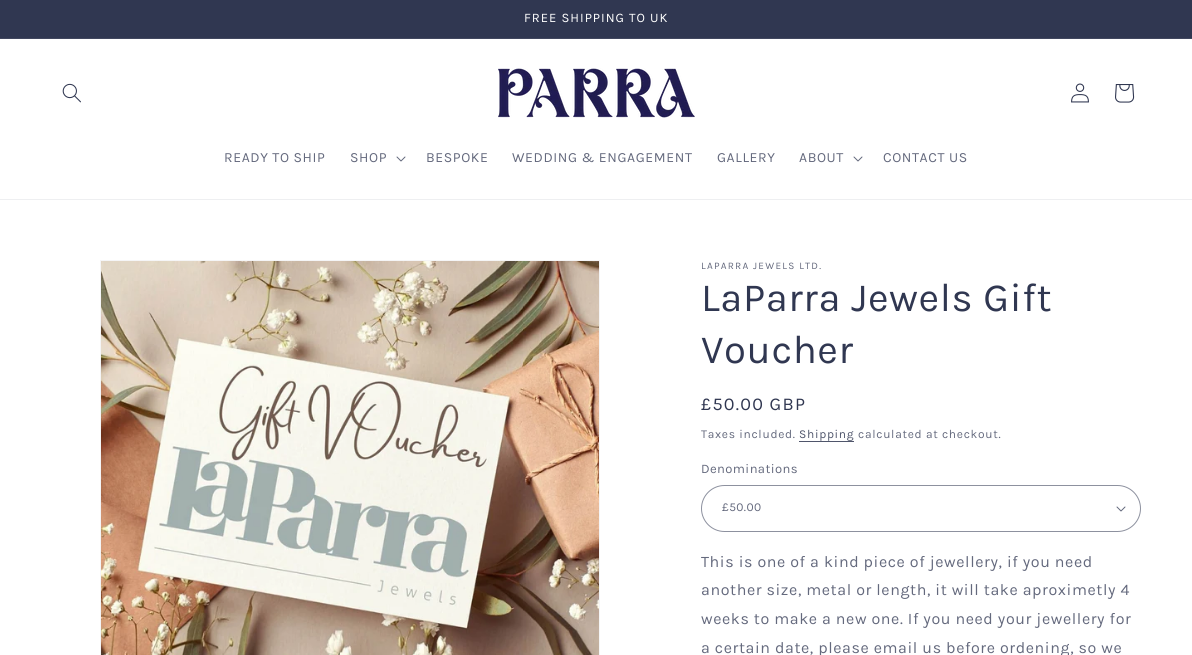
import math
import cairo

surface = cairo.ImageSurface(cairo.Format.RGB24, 1192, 655)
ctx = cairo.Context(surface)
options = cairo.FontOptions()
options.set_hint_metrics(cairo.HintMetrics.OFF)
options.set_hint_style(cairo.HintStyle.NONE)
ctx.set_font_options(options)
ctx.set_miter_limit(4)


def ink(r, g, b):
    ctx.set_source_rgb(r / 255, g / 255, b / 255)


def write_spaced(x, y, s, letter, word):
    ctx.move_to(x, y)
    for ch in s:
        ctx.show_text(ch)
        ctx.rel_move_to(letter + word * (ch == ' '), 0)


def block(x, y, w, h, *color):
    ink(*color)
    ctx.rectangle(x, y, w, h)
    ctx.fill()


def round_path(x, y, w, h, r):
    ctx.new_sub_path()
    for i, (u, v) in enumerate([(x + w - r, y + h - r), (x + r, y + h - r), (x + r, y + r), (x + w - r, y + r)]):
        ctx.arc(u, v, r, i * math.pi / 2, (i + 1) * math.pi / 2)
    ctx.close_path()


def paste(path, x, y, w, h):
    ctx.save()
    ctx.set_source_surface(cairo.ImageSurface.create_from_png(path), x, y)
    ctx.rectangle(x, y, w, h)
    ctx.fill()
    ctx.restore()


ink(255, 255, 255)
ctx.paint()
block(0, 0, 1192, 38, 48, 55, 81)
block(0, 38, 1192, 1, 65, 71, 95)
ctx.select_font_face("Karla")
ctx.set_font_size(13)
ink(255, 255, 255)
write_spaced(524, 22, "FREE SHIPPING TO UK", 1, 0)
block(0, 199, 1192, 1, 238, 239, 241)
paste("pic1.png", 62, 83, 19, 20)
paste("pic2.png", 498, 68, 197, 50)
paste("pic3.png", 1071, 83, 18, 20)
paste("pic4.png", 1115, 84, 20, 19)
ctx.set_font_size(14)
ink(100, 105, 125)
write_spaced(224, 162, "READY TO SHIP", 0.6, 0)
write_spaced(350, 162, "SHOP", 0.6, 0)
paste("pic5.png", 396, 156, 10, 6)
write_spaced(426, 162, "BESPOKE", 0.6, 0)
write_spaced(512, 162, "WEDDING & ENGAGEMENT", 0.6, 0)
write_spaced(717, 162, "GALLERY", 0.6, 0)
write_spaced(799, 162, "ABOUT", 0.6, 0)
paste("pic5.png", 853, 156, 10, 6)
write_spaced(883, 162, "CONTACT US", 0.6, 0)
ctx.rectangle(100.5, 260.5, 499, 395)
ink(245, 245, 246)
ctx.set_line_width(1)
ctx.stroke()
paste("pic6.png", 101, 261, 498, 394)
ctx.set_font_size(10)
ink(100, 105, 125)
write_spaced(701, 269, "LAPARRA JEWELS LTD.", 1.25, 0)
ctx.set_font_size(40)
ink(48, 55, 81)
write_spaced(701, 311, "LaParra Jewels Gift", 0.6, 0)
write_spaced(701, 363, "Voucher", 0.6, 0)
ctx.set_font_size(18)
write_spaced(701, 410, "£50.00 GBP", 1.25, 0)
ctx.set_font_size(12)
ink(100, 105, 125)
write_spaced(701, 438, "Taxes included.", 0.7, 0)
ink(79, 85, 107)
write_spaced(799, 438, "Shipping", 0.7, 0)
block(799, 441, 55, 1, 79, 85, 107)
ink(100, 105, 125)
write_spaced(858, 438, "calculated at checkout.", 0.7, 0)
ctx.set_font_size(13)
write_spaced(701, 473, "Denominations", 0.4, 0)
paste("pic5.png", 1116, 506, 10, 6)
round_path(701.5, 485.5, 439, 46, 23)
ink(141, 145, 159)
ctx.stroke()
ctx.set_font_size(12)
ink(100, 105, 125)
write_spaced(722, 511, "£50.00", 0.4, 0)
ctx.set_font_size(16)
write_spaced(701, 567, "This is one of a kind piece of jewellery, if you need", 0.6, 0)
write_spaced(701, 595, "another size, metal or length, it will take aproximetly 4", 0.6, 0)
write_spaced(701, 624, "weeks to make a new one. If you need your jewellery for", 0.6, 0)
write_spaced(701, 653, "a certain date, please email us before ordening, so we", 0.6, 0)
surface.write_to_png("screenshot.png")
